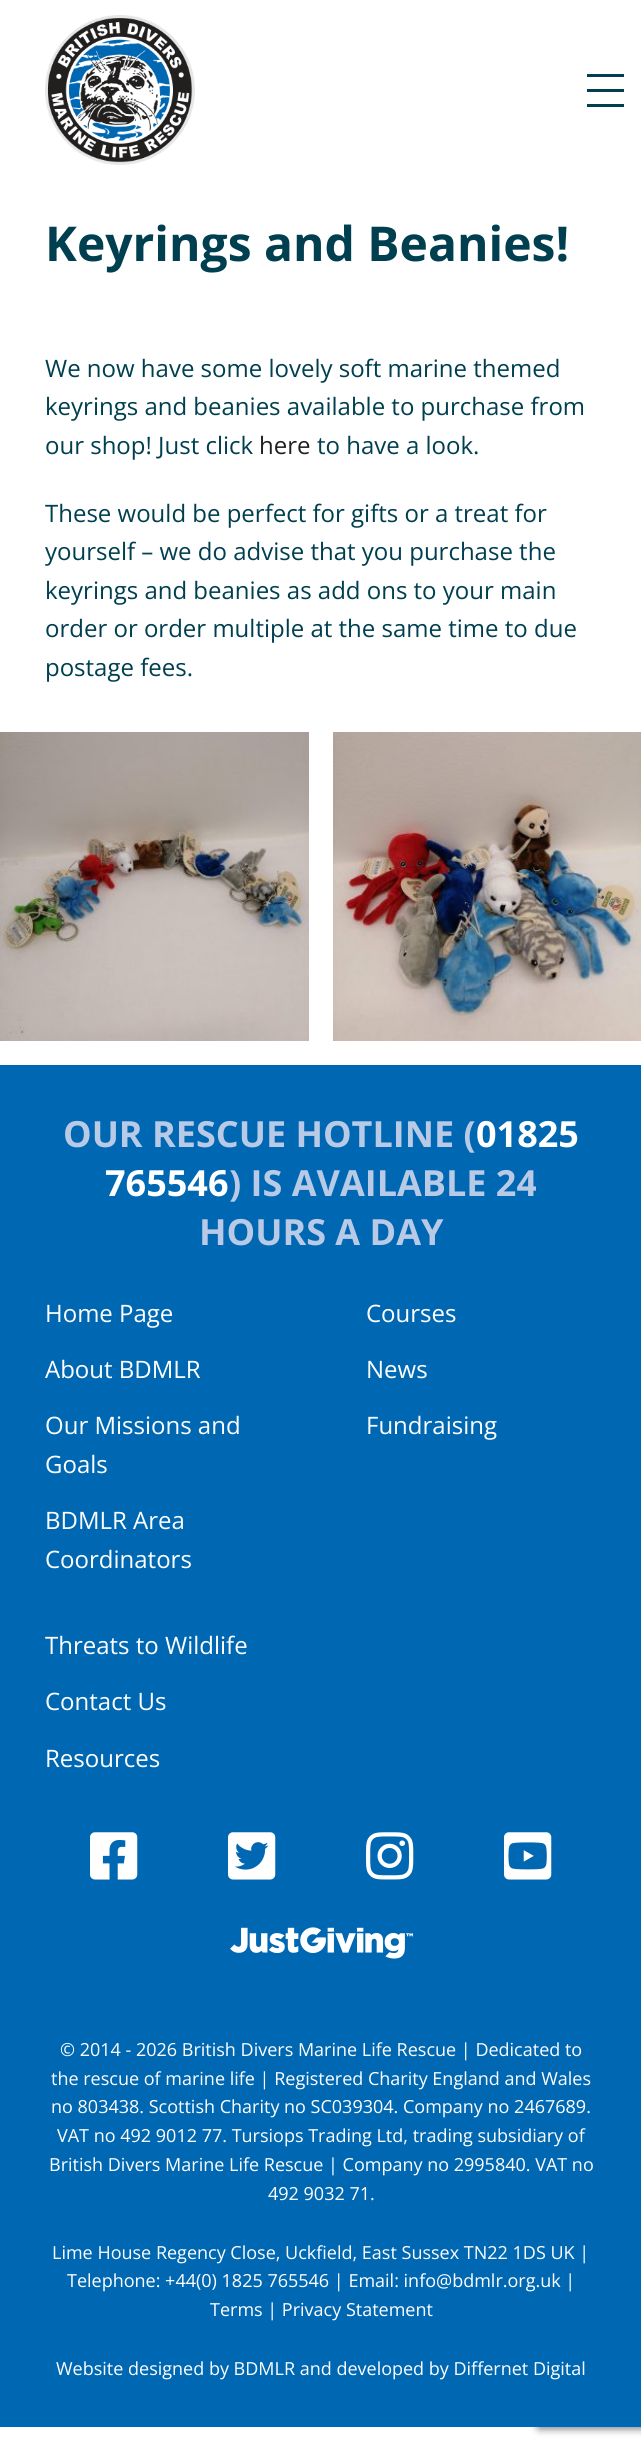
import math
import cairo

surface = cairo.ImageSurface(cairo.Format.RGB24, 641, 2449)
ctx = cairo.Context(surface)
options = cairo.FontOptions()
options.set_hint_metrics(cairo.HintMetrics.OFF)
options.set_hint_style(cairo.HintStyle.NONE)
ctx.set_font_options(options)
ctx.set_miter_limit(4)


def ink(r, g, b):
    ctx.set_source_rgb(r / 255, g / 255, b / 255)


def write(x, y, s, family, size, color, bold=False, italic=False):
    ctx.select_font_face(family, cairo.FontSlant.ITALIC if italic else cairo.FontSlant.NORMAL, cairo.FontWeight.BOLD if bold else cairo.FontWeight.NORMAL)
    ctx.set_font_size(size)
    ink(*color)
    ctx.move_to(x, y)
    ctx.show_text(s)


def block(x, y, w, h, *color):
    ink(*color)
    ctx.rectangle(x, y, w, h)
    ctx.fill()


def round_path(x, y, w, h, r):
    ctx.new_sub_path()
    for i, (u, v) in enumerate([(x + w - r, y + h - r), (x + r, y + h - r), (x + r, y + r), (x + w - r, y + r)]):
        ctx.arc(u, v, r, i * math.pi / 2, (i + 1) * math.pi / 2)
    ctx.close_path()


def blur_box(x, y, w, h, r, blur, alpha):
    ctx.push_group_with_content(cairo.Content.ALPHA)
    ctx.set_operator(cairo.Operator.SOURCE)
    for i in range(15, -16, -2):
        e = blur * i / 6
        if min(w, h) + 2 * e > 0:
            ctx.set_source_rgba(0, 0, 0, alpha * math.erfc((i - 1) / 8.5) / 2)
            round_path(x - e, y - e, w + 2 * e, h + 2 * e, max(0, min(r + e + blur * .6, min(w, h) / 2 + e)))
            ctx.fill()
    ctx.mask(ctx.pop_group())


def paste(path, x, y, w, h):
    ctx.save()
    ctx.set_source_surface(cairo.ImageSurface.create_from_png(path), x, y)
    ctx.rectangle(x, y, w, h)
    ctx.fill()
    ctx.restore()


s1 = dict(family="Open Sans", size=48, color=(0, 63, 80), bold=True)
s2 = dict(family="Open Sans", size=24, color=(0, 63, 80))
s3 = dict(family="Open Sans", size=24, color=(34, 31, 31))
s4 = dict(family="Open Sans", size=36, color=(185, 202, 231), bold=True)
s5 = dict(family="Open Sans", size=36, color=(255, 255, 255), bold=True)
s6 = dict(family="Open Sans", size=24, color=(255, 255, 255))
s7 = dict(family="Open Sans", size=18, color=(255, 255, 255))

ink(255, 255, 255)
ctx.paint()
paste("pic1.png", 45, 15, 150, 150)
block(587, 89, 37, 3, 0, 63, 80)
block(587, 74, 37, 3, 0, 63, 80)
block(587, 104, 37, 3, 0, 63, 80)
write(45, 261, "Keyrings and Beanies!", **s1)
write(45, 377, "We now have some lovely soft marine themed", **s2)
write(45, 415, "keyrings and beanies available to purchase from", **s2)
write(45, 454, "our shop! Just click", **s2)
write(259, 454, "here", **s3)
write(317, 454, "to have a look.", **s2)
write(45, 522, "These would be perfect for gifts or a treat for", **s2)
write(45, 560, "yourself – we do advise that you purchase the", **s2)
write(45, 599, "keyrings and beanies as add ons to your main", **s2)
write(45, 637, "order or order multiple at the same time to due", **s2)
write(45, 676, "postage fees.", **s2)
paste("pic2.png", 0, 732, 309, 309)
paste("pic3.png", 333, 732, 308, 309)
ink(128, 128, 128)
blur_box(537, 2339, 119, 90, 3, 4, 1)
block(0, 1065, 641, 1362, 0, 104, 179)
write(63, 1147, "OUR RESCUE HOTLINE (", **s4)
write(476, 1147, "01825", **s5)
write(105, 1196, "765546", **s5)
write(229, 1196, ") IS AVAILABLE 24", **s4)
write(199, 1245, "HOURS A DAY", **s4)
write(45, 1322, "Home Page", **s6)
write(45, 1378, "About BDMLR", **s6)
write(45, 1434, "Our Missions and", **s6)
write(45, 1473, "Goals", **s6)
write(45, 1529, "BDMLR Area", **s6)
write(45, 1568, "Coordinators", **s6)
write(366, 1322, "Courses", **s6)
write(366, 1378, "News", **s6)
write(366, 1434, "Fundraising", **s6)
write(45, 1654, "Threats to Wildlife", **s6)
write(45, 1710, "Contact Us", **s6)
write(45, 1767, "Resources", **s6)
paste("pic4.png", 90, 1832, 48, 48)
paste("pic5.png", 228, 1832, 48, 48)
paste("pic6.png", 366, 1832, 48, 48)
paste("pic7.png", 504, 1832, 48, 48)
paste("pic8.png", 230, 1927, 183, 32)
write(60, 2056, "© 2014 - 2026 British Divers Marine Life Rescue | Dedicated to", **s7)
write(51, 2085, "the rescue of marine life | Registered Charity England and Wales", **s7)
write(51, 2113, "no 803438. Scottish Charity no SC039304. Company no 2467689.", **s7)
write(57, 2142, "VAT no 492 9012 77. Tursiops Trading Ltd, trading subsidiary of", **s7)
write(49, 2171, "British Divers Marine Life Rescue | Company no 2995840. VAT no", **s7)
write(268, 2200, "492 9032 71.", **s7)
write(52, 2259, "Lime House Regency Close, Uckfield, East Sussex TN22 1DS UK |", **s7)
write(67, 2287, "Telephone: +44(0) 1825 765546 | Email: info@bdmlr.org.uk |", **s7)
write(210, 2316, "Terms | Privacy Statement", **s7)
write(56, 2375, "Website designed by BDMLR and developed by Differnet Digital", **s7)
surface.write_to_png("screenshot.png")
